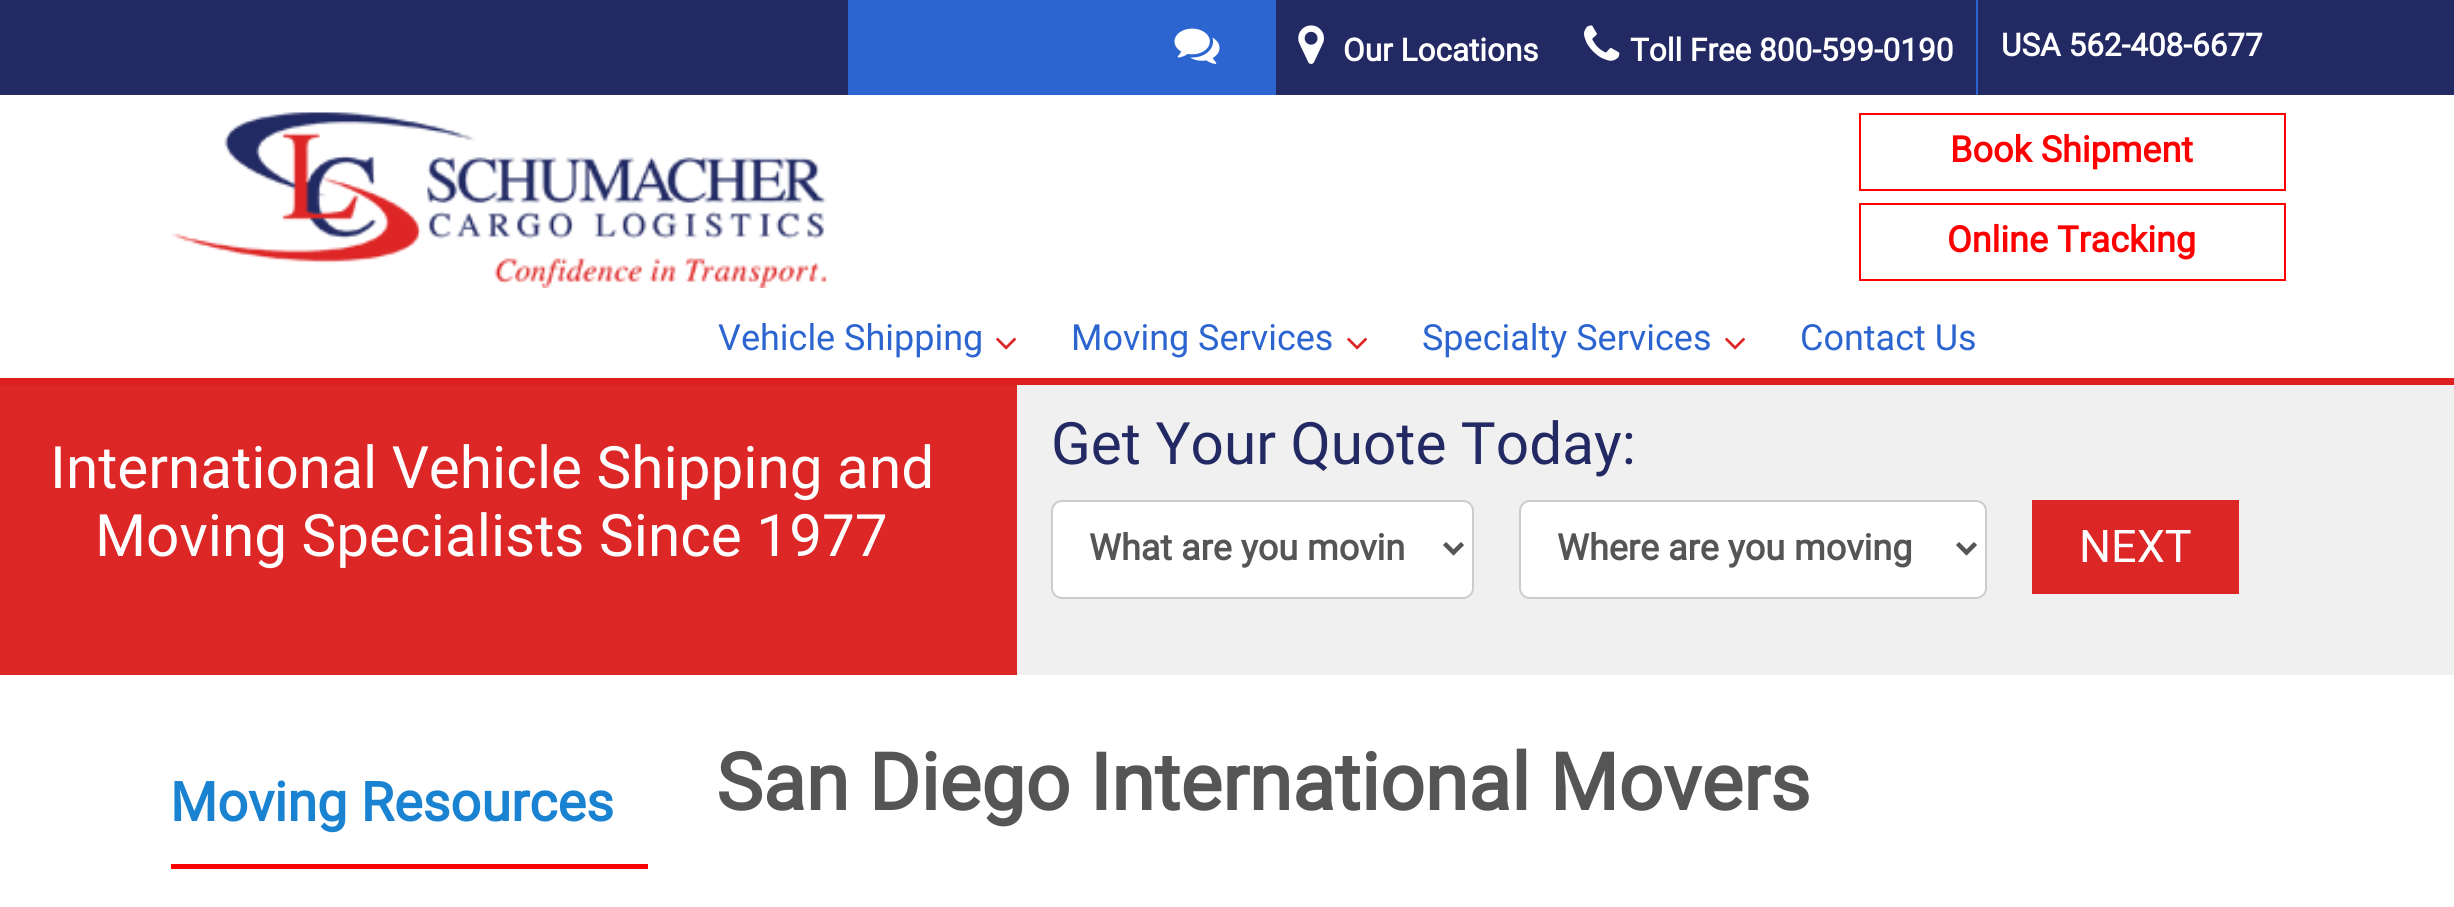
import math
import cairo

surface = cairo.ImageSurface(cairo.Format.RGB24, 2454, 907)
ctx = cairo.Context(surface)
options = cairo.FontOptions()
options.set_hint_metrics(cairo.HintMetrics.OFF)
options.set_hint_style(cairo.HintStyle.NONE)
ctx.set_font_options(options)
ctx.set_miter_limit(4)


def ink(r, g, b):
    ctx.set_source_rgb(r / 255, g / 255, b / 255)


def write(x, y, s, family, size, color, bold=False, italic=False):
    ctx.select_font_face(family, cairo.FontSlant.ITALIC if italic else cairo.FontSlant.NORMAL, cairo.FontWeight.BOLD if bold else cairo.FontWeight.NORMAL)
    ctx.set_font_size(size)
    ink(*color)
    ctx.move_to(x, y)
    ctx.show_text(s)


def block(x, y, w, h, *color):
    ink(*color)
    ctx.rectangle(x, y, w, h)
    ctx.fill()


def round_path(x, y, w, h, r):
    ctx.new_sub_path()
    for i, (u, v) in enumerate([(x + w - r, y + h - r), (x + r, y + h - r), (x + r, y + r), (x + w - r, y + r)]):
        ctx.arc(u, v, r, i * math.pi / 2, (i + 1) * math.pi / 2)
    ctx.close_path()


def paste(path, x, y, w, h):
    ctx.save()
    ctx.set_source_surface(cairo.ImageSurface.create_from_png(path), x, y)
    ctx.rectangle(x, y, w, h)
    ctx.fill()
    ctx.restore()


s1 = dict(family="Roboto", size=31.5, color=(255, 255, 255), bold=True)
s2 = dict(family="Roboto", size=36, color=(255, 0, 0), bold=True)
s3 = dict(family="Roboto", size=36, color=(44, 101, 208))
s4 = dict(family="Roboto", size=58.5, color=(255, 255, 255))
s5 = dict(family="Roboto", size=58.5, color=(35, 41, 99))
s6 = dict(family="Roboto", size=36, color=(85, 85, 85), bold=True)
s7 = dict(family="Roboto", size=45, color=(255, 255, 255))
s8 = dict(family="Roboto", size=54, color=(25, 130, 209), bold=True)
s9 = dict(family="Roboto", size=78.75, color=(85, 85, 85), bold=True)

ink(255, 255, 255)
ctx.paint()
block(0, 0, 2454, 95, 35, 41, 99)
block(848, 0, 428, 95, 44, 101, 208)
paste("pic1.png", 1174, 28, 46, 36)
paste("pic2.png", 1298, 25, 26, 39)
write(1343, 61, "Our Locations", **s1)
paste("pic3.png", 1584, 25, 36, 36)
write(1630, 61, "Toll Free 800-599-0190", **s1)
block(1976, 0, 2, 95, 44, 101, 208)
write(2001, 56, "USA 562-408-6677", **s1)
block(0, 378, 2454, 7, 221, 31, 31)
paste("pic4.png", 171, 112, 656, 176)
ctx.rectangle(1860, 114, 425, 76)
ink(255, 0, 0)
ctx.stroke()
write(1950, 162, "Book Shipment", **s2)
ctx.rectangle(1860, 204, 425, 76)
ctx.stroke()
write(1947, 252, "Online Tracking", **s2)
write(718, 350, "Vehicle Shipping", **s3)
paste("pic5.png", 996, 337, 21, 13)
write(1071, 350, "Moving Services", **s3)
paste("pic5.png", 1347, 337, 21, 13)
write(1422, 350, "Specialty Services", **s3)
paste("pic5.png", 1725, 337, 21, 13)
write(1800, 350, "Contact Us", **s3)
block(0, 385, 1017, 290, 221, 38, 38)
write(50, 488, "International Vehicle Shipping and", **s4)
write(95, 556, "Moving Specialists Since 1977", **s4)
block(1017, 385, 1437, 290, 240, 240, 240)
write(1051, 464, "Get Your Quote Today:", **s5)
ink(255, 255, 255)
round_path(1052, 501, 421, 97, 10)
ctx.fill_preserve()
ink(204, 204, 204)
ctx.stroke()
ctx.new_path()
ctx.move_to(1444.5, 543.5)
ctx.line_to(1453.5, 552.5)
ctx.line_to(1462.5, 543.5)
ink(85, 85, 85)
ctx.set_line_width(4.5)
ctx.stroke()
write(1089, 560, "What are you movin", **s6)
ink(255, 255, 255)
round_path(1520, 501, 466, 97, 10)
ctx.fill_preserve()
ink(204, 204, 204)
ctx.set_line_width(2)
ctx.stroke()
ctx.new_path()
ctx.move_to(1957.5, 543.5)
ctx.line_to(1966.5, 552.5)
ctx.line_to(1975.5, 543.5)
ink(85, 85, 85)
ctx.set_line_width(4.5)
ctx.stroke()
write(1557, 560, "Where are you moving", **s6)
block(2032, 500, 207, 94, 221, 38, 38)
write(2079, 562, "NEXT", **s7)
block(171, 864, 477, 5, 255, 0, 0)
write(170, 821, "Moving Resources", **s8)
write(716, 810, "San Diego International Movers", **s9)
surface.write_to_png("screenshot.png")
